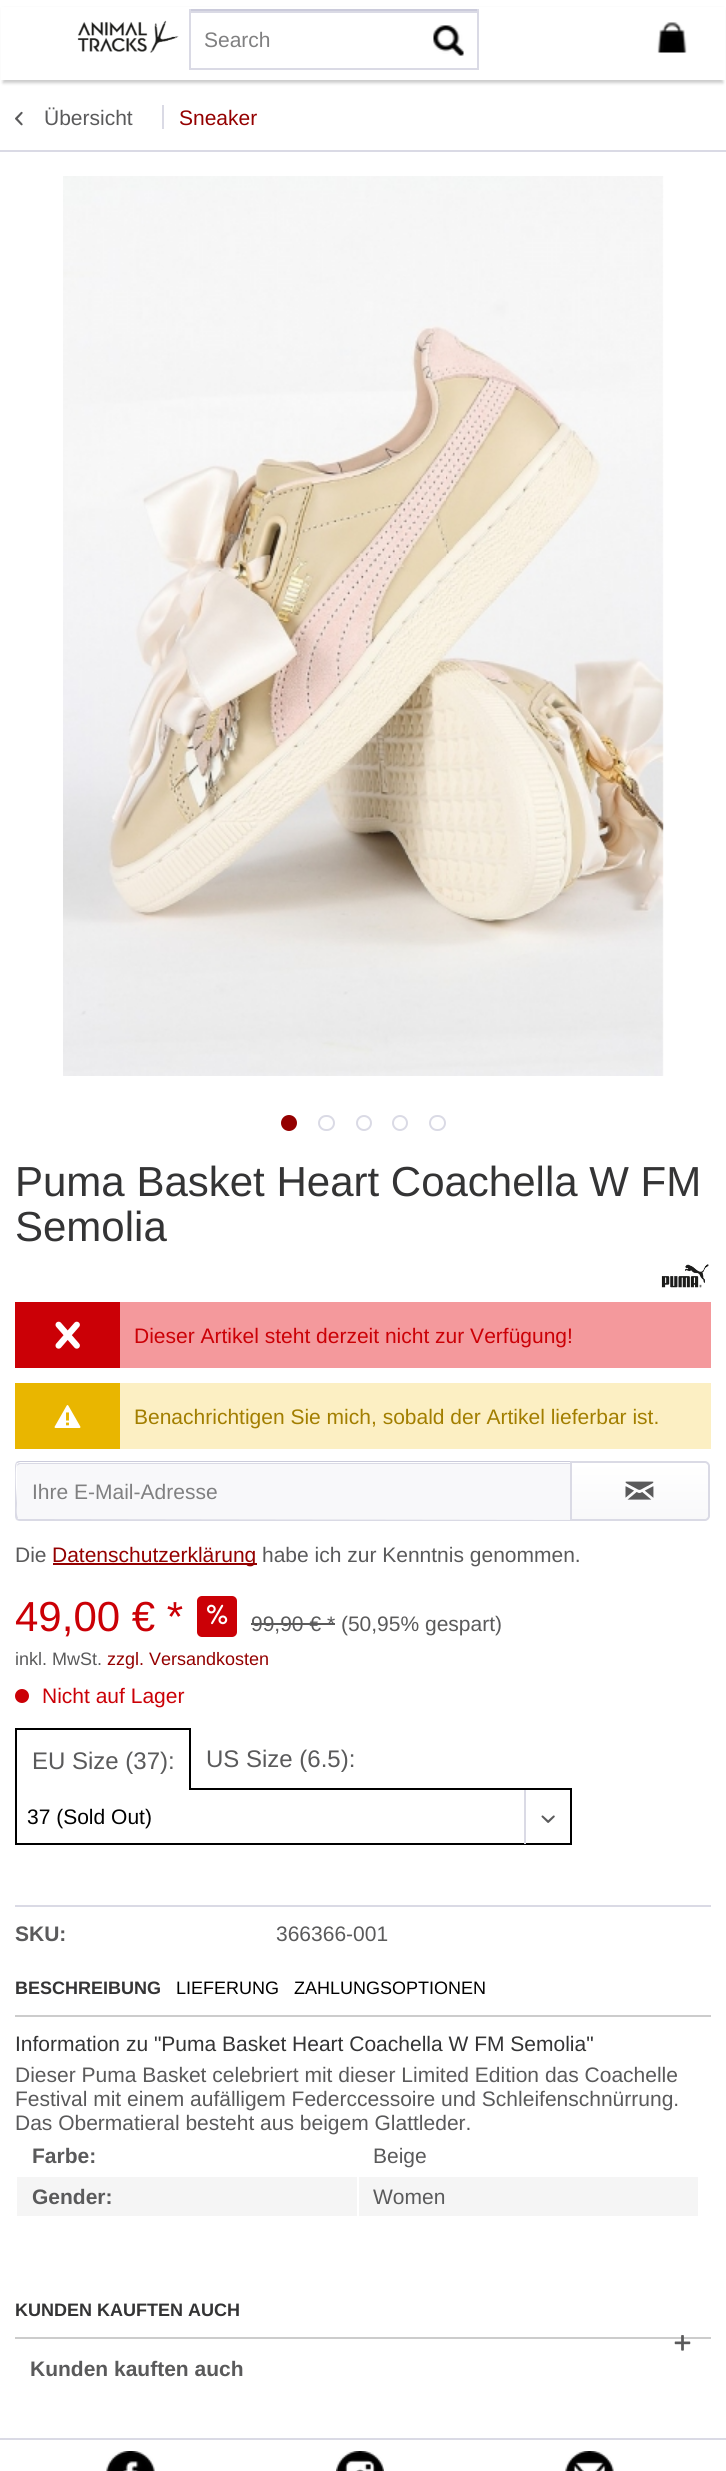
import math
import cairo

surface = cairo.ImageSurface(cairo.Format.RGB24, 726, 2471)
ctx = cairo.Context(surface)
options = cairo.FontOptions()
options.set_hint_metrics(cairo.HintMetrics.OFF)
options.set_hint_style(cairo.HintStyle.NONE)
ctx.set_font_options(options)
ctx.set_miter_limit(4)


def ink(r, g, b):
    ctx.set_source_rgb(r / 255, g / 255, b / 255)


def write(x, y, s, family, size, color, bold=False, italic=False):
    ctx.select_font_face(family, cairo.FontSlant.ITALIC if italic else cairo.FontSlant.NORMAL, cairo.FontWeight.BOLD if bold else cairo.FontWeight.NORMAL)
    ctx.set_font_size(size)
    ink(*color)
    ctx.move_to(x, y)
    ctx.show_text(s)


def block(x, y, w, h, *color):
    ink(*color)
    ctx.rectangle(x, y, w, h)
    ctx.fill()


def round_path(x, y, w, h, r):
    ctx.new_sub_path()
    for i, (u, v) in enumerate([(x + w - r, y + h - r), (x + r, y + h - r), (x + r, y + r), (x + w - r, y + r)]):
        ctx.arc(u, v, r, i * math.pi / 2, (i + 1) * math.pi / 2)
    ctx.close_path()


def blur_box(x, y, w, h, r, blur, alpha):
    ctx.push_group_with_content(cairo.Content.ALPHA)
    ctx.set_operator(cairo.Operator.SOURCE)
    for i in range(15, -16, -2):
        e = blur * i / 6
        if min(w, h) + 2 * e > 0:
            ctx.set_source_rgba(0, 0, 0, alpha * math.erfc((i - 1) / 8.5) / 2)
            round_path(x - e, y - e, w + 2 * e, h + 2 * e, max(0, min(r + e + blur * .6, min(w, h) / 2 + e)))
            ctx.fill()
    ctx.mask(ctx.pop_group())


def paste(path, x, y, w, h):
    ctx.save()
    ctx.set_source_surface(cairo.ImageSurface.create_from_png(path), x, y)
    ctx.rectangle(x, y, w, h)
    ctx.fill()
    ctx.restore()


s1 = dict(family="Liberation Sans", size=21, color=(128, 128, 129))
s2 = dict(family="Liberation Sans", size=21, color=(90, 90, 91))
s3 = dict(family="Liberation Sans", size=21, color=(148, 0, 0))
s4 = dict(family="Liberation Sans", size=42, color=(52, 52, 53))
s5 = dict(family="Liberation Sans", size=21, color=(203, 0, 6))
s6 = dict(family="Liberation Sans", size=21, color=(162, 126, 0))
s7 = dict(family="Liberation Sans", size=42, color=(203, 0, 6))
s8 = dict(family="Liberation Sans", size=18, color=(90, 90, 91))
s9 = dict(family="Liberation Sans", size=18, color=(148, 0, 0))
s10 = dict(family="Liberation Sans", size=24, color=(90, 90, 91))
s11 = dict(family="Liberation Sans", size=21, color=(0, 0, 0))
s12 = dict(family="Liberation Sans", size=21, color=(90, 90, 91), bold=True)
s13 = dict(family="Liberation Sans", size=18, color=(52, 52, 53), bold=True)
s14 = dict(family="Liberation Sans", size=18, color=(0, 0, 0))
s15 = dict(family="Liberation Sans", size=21, color=(52, 52, 53))

ink(255, 255, 255)
ctx.paint()
ink(204, 204, 204)
blur_box(3, 9, 720, 74, 0, 1.5, 1)
block(1, 7, 724, 73, 255, 255, 255)
paste("pic1.png", 77, 20, 102, 33)
block(191, 11, 286, 2, 218, 218, 229)
block(189, 9, 290, 2, 203, 203, 219)
block(477, 9, 2, 60, 218, 218, 229)
block(189, 68, 290, 2, 218, 218, 229)
block(189, 9, 2, 60, 218, 218, 229)
write(204, 47, "Search", **s1)
paste("pic2.png", 433, 25, 31, 31)
paste("pic3.png", 657, 22, 30, 31)
block(0, 150, 726, 2, 218, 218, 229)
paste("pic4.png", 15, 111, 8, 15)
write(44, 125, "Übersicht", **s2)
block(162, 105, 2, 24, 218, 218, 229)
write(179, 125, "Sneaker", **s3)
paste("pic5.png", 63, 176, 601, 900)
ctx.arc(289, 1123, 7, 0, 2 * math.pi)
ctx.fill_preserve()
ctx.stroke()
round_path(319, 1116, 15, 14, 7)
ink(218, 218, 229)
ctx.stroke()
ctx.arc(364, 1123, 7, 0, 2 * math.pi)
ctx.stroke()
ctx.arc(400, 1123, 7, 0, 2 * math.pi)
ctx.stroke()
round_path(430, 1116, 15, 14, 7)
ctx.stroke()
write(15, 1196, "Puma Basket Heart Coachella W FM", **s4)
write(15, 1241, "Semolia", **s4)
paste("pic6.png", 661, 1264, 48, 24)
block(120, 1302, 591, 66, 244, 153, 156)
block(15, 1302, 105, 66, 203, 0, 6)
paste("pic7.png", 55, 1321, 25, 28)
write(134, 1343, "Dieser Artikel steht derzeit nicht zur Verfügung!", **s5)
block(120, 1383, 591, 66, 252, 239, 195)
block(15, 1383, 105, 66, 233, 182, 0)
paste("pic8.png", 54, 1405, 27, 23)
write(134, 1424, "Benachrichtigen Sie mich, sobald der Artikel lieferbar ist.", **s6)
ink(248, 248, 250)
ctx.new_path()
ctx.move_to(20, 1463)
ctx.line_to(570, 1463)
ctx.line_to(570, 1520)
ctx.line_to(20, 1520)
ctx.curve_to(18.5, 1520, 17, 1518.5, 17, 1517)
ctx.line_to(17, 1466)
ctx.curve_to(17, 1464.5, 18.5, 1463, 20, 1463)
ctx.close_path()
ctx.fill()
ink(218, 218, 229)
ctx.new_path()
ctx.move_to(20, 1464)
ctx.line_to(570, 1464)
ctx.line_to(570, 1463)
ctx.line_to(20, 1463)
ctx.curve_to(18, 1463, 17, 1464, 17, 1466)
ctx.line_to(18, 1465)
ctx.close_path()
ctx.fill()
ink(203, 203, 219)
ctx.new_path()
ctx.move_to(20, 1461)
ctx.curve_to(18, 1461, 17, 1462, 16, 1462)
ctx.line_to(17, 1463)
ctx.line_to(20, 1462)
ctx.line_to(570, 1462)
ctx.line_to(572, 1461)
ctx.close_path()
ctx.fill()
ink(218, 218, 229)
ctx.new_path()
ctx.move_to(572, 1521)
ctx.line_to(570, 1520)
ctx.line_to(18, 1519)
ctx.line_to(18, 1518)
ctx.line_to(16, 1520)
ctx.curve_to(17, 1520, 18, 1521, 20, 1521)
ctx.close_path()
ctx.fill()
ctx.new_path()
ctx.move_to(15, 1466)
ctx.line_to(15, 1516)
ctx.curve_to(15, 1518, 16, 1519, 16, 1520)
ctx.line_to(18, 1518)
ctx.curve_to(16, 1514, 17, 1507, 17, 1503)
ctx.line_to(16, 1488)
ctx.curve_to(16, 1487, 15, 1466, 17, 1463)
ctx.line_to(16, 1462)
ctx.curve_to(16, 1463, 15, 1464, 15, 1466)
ctx.close_path()
ctx.fill()
write(32, 1499, "Ihre E-Mail-Adresse", **s1)
gradient = cairo.LinearGradient(640, 1463, 640, 1520)
gradient.add_color_stop_rgba(0, 1, 1, 1, 1)
gradient.add_color_stop_rgba(1, 0.973, 0.973, 0.98, 1)
ctx.set_source(gradient)
ctx.new_path()
ctx.move_to(572, 1463)
ctx.line_to(705, 1463)
ctx.curve_to(706.5, 1463, 708, 1464.5, 708, 1466)
ctx.line_to(708, 1517)
ctx.curve_to(708, 1518.5, 706.5, 1520, 705, 1520)
ctx.line_to(572, 1520)
ctx.close_path()
ctx.fill()
ctx.new_path()
ctx.move_to(571, 1462)
ctx.line_to(705, 1462)
ctx.curve_to(707, 1462, 709, 1464, 709, 1466)
ctx.line_to(709, 1516)
ctx.curve_to(709, 1518, 707, 1520, 705, 1520)
ctx.line_to(571, 1520)
ctx.close_path()
ink(218, 218, 229)
ctx.stroke()
paste("pic9.png", 625, 1481, 29, 19)
write(15, 1562, "Die", **s2)
block(53, 1563, 204, 2, 148, 0, 0)
write(52, 1562, "Datenschutzerklärung", **s3)
write(262, 1562, "habe ich zur Kenntnis genommen.", **s2)
write(15, 1631, "49,00 € *", **s7)
round_path(197, 1596, 40, 41, 5)
ctx.fill()
paste("pic10.png", 207, 1604, 21, 21)
write(251, 1631, "99,90 € * (50,95% gespart)", **s2)
block(251, 1623, 84, 2, 90, 90, 91)
write(15, 1665, "inkl. MwSt.", **s8)
write(107, 1665, "zzgl. Versandkosten", **s9)
ink(203, 0, 6)
ctx.new_path()
ctx.arc(22, 1696, 7, 0, 2 * math.pi)
ctx.fill()
write(42, 1703, "Nicht auf Lager", **s5)
ctx.rectangle(16, 1789, 555, 55)
ink(0, 0, 0)
ctx.stroke()
block(17, 1788, 172, 2, 255, 255, 255)
block(15, 1728, 176, 2, 0, 0, 0)
block(189, 1728, 2, 62, 0, 0, 0)
block(15, 1728, 2, 62, 0, 0, 0)
write(32, 1769, "EU Size (37):", **s10)
write(206, 1767, "US Size (6.5):", **s10)
write(27, 1824, "37 (Sold Out)", **s11)
block(524, 1790, 2, 54, 218, 218, 229)
paste("pic11.png", 541, 1815, 14, 8)
block(15, 1905, 696, 2, 218, 218, 229)
write(15, 1941, "SKU:", **s12)
write(276, 1941, "366366-001", **s2)
block(15, 2015, 696, 2, 204, 204, 204)
write(15, 1994, "BESCHREIBUNG", **s13)
write(176, 1994, "LIEFERUNG", **s14)
write(294, 1994, "ZAHLUNGSOPTIONEN", **s14)
write(15, 2051, "Information zu \"Puma Basket Heart Coachella W FM Semolia\"", **s15)
write(15, 2082, "Dieser Puma Basket celebriert mit dieser Limited Edition das Coachelle", **s2)
write(15, 2106, "Festival mit einem aufälligem Federccessoire und Schleifenschnürrung.", **s2)
write(15, 2130, "Das Obermatieral besteht aus beigem Glattleder.", **s2)
write(32, 2163, "Farbe:", **s12)
write(373, 2163, "Beige", **s2)
block(17, 2177, 340, 39, 245, 245, 245)
write(32, 2204, "Gender:", **s12)
block(359, 2177, 339, 39, 245, 245, 245)
write(373, 2204, "Women", **s2)
block(15, 2337, 696, 2, 204, 204, 204)
write(15, 2316, "KUNDEN KAUFTEN AUCH", **s13)
paste("pic12.png", 674, 2335, 17, 16)
write(30, 2376, "Kunden kauften auch", **s12)
block(0, 2438, 726, 2, 218, 218, 229)
paste("pic13.png", 106, 2451, 49, 20)
paste("pic14.png", 336, 2451, 48, 20)
paste("pic15.png", 565, 2451, 49, 20)
surface.write_to_png("screenshot.png")
